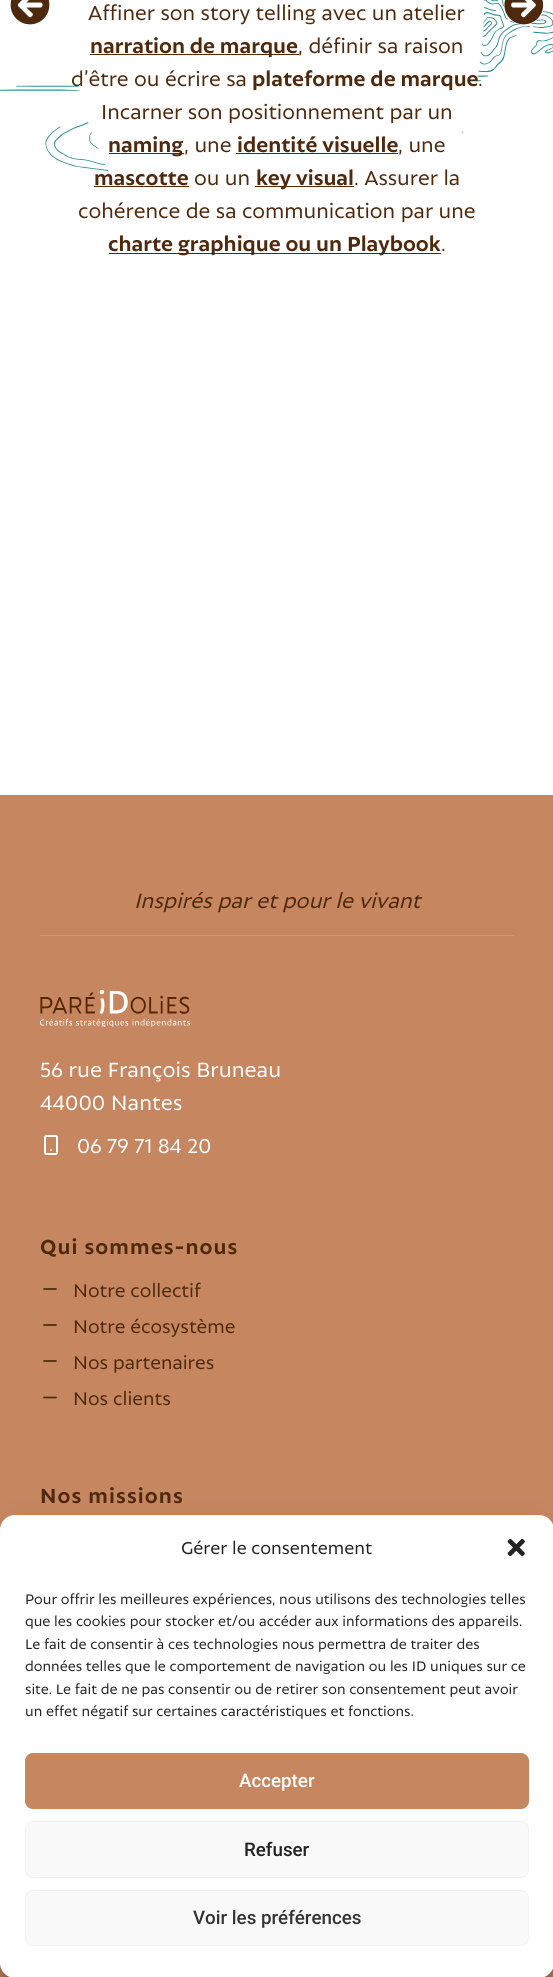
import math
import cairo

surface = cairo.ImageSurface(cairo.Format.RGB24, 553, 1977)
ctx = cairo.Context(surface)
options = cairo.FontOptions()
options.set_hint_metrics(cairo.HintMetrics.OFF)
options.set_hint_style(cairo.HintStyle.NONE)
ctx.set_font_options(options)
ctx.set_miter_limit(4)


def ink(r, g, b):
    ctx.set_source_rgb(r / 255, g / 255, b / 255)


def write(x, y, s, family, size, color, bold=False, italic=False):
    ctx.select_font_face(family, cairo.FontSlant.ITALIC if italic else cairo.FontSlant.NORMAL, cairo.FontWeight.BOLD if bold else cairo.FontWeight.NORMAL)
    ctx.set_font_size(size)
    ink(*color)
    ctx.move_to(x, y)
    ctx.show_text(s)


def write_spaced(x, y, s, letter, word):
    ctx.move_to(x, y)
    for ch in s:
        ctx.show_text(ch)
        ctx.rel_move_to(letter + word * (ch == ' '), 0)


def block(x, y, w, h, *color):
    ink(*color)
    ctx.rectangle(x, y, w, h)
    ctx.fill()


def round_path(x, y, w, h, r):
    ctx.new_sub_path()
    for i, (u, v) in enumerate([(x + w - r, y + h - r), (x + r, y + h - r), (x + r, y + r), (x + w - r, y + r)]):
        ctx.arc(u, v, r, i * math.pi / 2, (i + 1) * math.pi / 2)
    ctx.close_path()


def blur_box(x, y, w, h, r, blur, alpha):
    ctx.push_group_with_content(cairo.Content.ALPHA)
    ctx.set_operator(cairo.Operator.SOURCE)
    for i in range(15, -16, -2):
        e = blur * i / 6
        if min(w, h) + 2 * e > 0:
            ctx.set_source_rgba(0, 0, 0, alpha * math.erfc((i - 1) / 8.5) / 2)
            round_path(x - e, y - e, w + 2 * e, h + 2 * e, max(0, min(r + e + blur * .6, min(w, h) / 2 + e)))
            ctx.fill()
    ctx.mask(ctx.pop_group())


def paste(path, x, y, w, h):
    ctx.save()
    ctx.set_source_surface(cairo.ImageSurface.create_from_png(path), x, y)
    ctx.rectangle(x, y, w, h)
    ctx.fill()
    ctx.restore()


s1 = dict(family="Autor", size=22, color=(79, 41, 13))
s2 = dict(family="Autor", size=22, color=(79, 41, 13), bold=True)
s3 = dict(family="Autor", size=22.5, color=(79, 41, 13), italic=True)
s4 = dict(family="Autor", size=22.5, color=(255, 255, 255))
s5 = dict(family="Autor", size=22, color=(255, 255, 255))
s6 = dict(family="Autor", size=20, color=(79, 41, 13))
s7 = dict(family="Autor", size=18.75, color=(34, 34, 34))
s8 = dict(family="Autor", size=15, color=(34, 34, 34))
s9 = dict(family="Roboto Medium", size=18.75, color=(255, 255, 255))
s10 = dict(family="Roboto Medium", size=18.75, color=(34, 34, 34))
s11 = dict(family="Roboto Medium", size=18.75, color=(51, 51, 51))

ink(198, 134, 96)
ctx.paint()
block(0, 0, 553, 795, 255, 255, 255)
paste("pic1.png", 0, 0, 553, 172)
ctx.new_path()
ctx.move_to(277, -282.5)
ctx.curve_to(391.5, -282.5, 484, -154, 484, 4.5)
ctx.curve_to(484, 163, 391.5, 291.5, 277, 291.5)
ctx.curve_to(162.5, 291.5, 70, 163, 70, 4.5)
ctx.curve_to(70, -154, 162.5, -282.5, 277, -282.5)
ctx.close_path()
ctx.fill()
paste("pic2.png", 10, 0, 40, 25)
ctx.arc(524, 5, 20, 0, 2 * math.pi)
ctx.fill()
paste("pic3.png", 504, 0, 40, 25)
write(88, 20, "Affiner son story telling avec un atelier", **s1)
block(90, 54, 209, 1, 79, 41, 13)
write(90, 53, "narration de marque", **s2)
write(298, 53, ", définir sa raison", **s1)
write(71, 86, "d’être ou écrire sa", **s1)
write(252, 86, "plateforme de marque", **s2)
write(478, 86, ".", **s1)
write(101, 119, "Incarner son positionnement par un", **s1)
block(109, 153, 75, 1, 79, 41, 13)
write(108, 152, "naming", **s2)
write(184, 152, ", une", **s1)
write(237, 152, "identité visuelle", **s2)
block(236, 153, 162, 1, 79, 41, 13)
write(398, 152, ", une", **s1)
write(94, 185, "mascotte", **s2)
block(94, 186, 95, 1, 79, 41, 13)
write(194, 185, "ou un", **s1)
block(255, 186, 99, 1, 79, 41, 13)
write(256, 185, "key visual", **s2)
write(354, 185, ". Assurer la", **s1)
write(78, 218, "cohérence de sa communication par une", **s1)
block(109, 253, 332, 1, 79, 41, 13)
write(108, 251, "charte graphique ou un Playbook", **s2)
write(441, 251, ".", **s1)
block(40, 935, 474, 1, 206, 151, 119)
write(134, 908, "Inspirés par et pour le vivant", **s3)
paste("pic4.png", 40, 990, 150, 37)
write(40, 1077, "56 rue François Bruneau", **s4)
write(40, 1110, "44000 Nantes", **s4)
round_path(45, 1136, 12, 18, 1.5)
ctx.stroke()
ctx.new_path()
ctx.move_to(51, 1150)
ctx.line_to(51, 1150)
ctx.set_line_width(1.8)
ctx.set_line_cap(cairo.LineCap.ROUND)
ctx.set_line_join(cairo.LineJoin.ROUND)
ctx.stroke()
write(77, 1153, "06 79 71 84 20", **s5)
ctx.select_font_face("Autor", cairo.FontSlant.NORMAL, cairo.FontWeight.BOLD)
ink(79, 41, 13)
write_spaced(40, 1254, "Qui sommes-nous", 1.1, 0)
ctx.new_path()
ctx.move_to(44, 1289)
ctx.line_to(56, 1289)
ctx.move_to(44, 1325)
ctx.line_to(56, 1325)
ctx.set_line_width(1.7)
ctx.stroke()
write(73, 1297, "Notre collectif", **s6)
write(73, 1333, "Notre écosystème", **s6)
ctx.new_path()
ctx.move_to(44, 1361)
ctx.line_to(56, 1361)
ctx.move_to(44, 1397.5)
ctx.line_to(56, 1397.5)
ctx.stroke()
write(73, 1369, "Nos partenaires", **s6)
write(73, 1405, "Nos clients", **s6)
ctx.select_font_face("Autor", cairo.FontSlant.NORMAL, cairo.FontWeight.BOLD)
ctx.set_font_size(22)
write_spaced(40, 1503, "Nos missions", 1.1, 0)
ink(0, 0, 0)
blur_box(0, 1523, 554, 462, 15, 4, 0.23)
blur_box(0, 1528, 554, 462, 15, 12.5, 0.19)
ink(255, 255, 255)
round_path(0, 1515, 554, 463, 15)
ctx.fill()
write(181, 1554, "Gérer le consentement", **s7)
paste("pic5.png", 507, 1538, 18, 19)
write(25, 1604, "Pour offrir les meilleures expériences, nous utilisons des technologies telles", **s8)
write(25, 1626, "que les cookies pour stocker et/ou accéder aux informations des appareils.", **s8)
write(25, 1649, "Le fait de consentir à ces technologies nous permettra de traiter des", **s8)
write(25, 1671, "données telles que le comportement de navigation ou les ID uniques sur ce", **s8)
write(25, 1694, "site. Le fait de ne pas consentir ou de retirer son consentement peut avoir", **s8)
write(25, 1716, "un effet négatif sur certaines caractéristiques et fonctions.", **s8)
ink(198, 134, 96)
round_path(25.5, 1753.5, 503, 55, 7.5)
ctx.fill_preserve()
ctx.set_line_width(1)
ctx.set_line_cap(cairo.LineCap.BUTT)
ctx.set_line_join(cairo.LineJoin.MITER)
ctx.stroke()
write(239, 1787, "Accepter", **s9)
ink(249, 249, 249)
round_path(25.5, 1821.5, 503, 56, 7.5)
ctx.fill_preserve()
ink(242, 242, 242)
ctx.stroke()
write(244, 1856, "Refuser", **s10)
ink(249, 249, 249)
round_path(25.5, 1890.5, 503, 55, 7.5)
ctx.fill_preserve()
ink(242, 242, 242)
ctx.stroke()
write(193, 1924, "Voir les préférences", **s11)
surface.write_to_png("screenshot.png")
